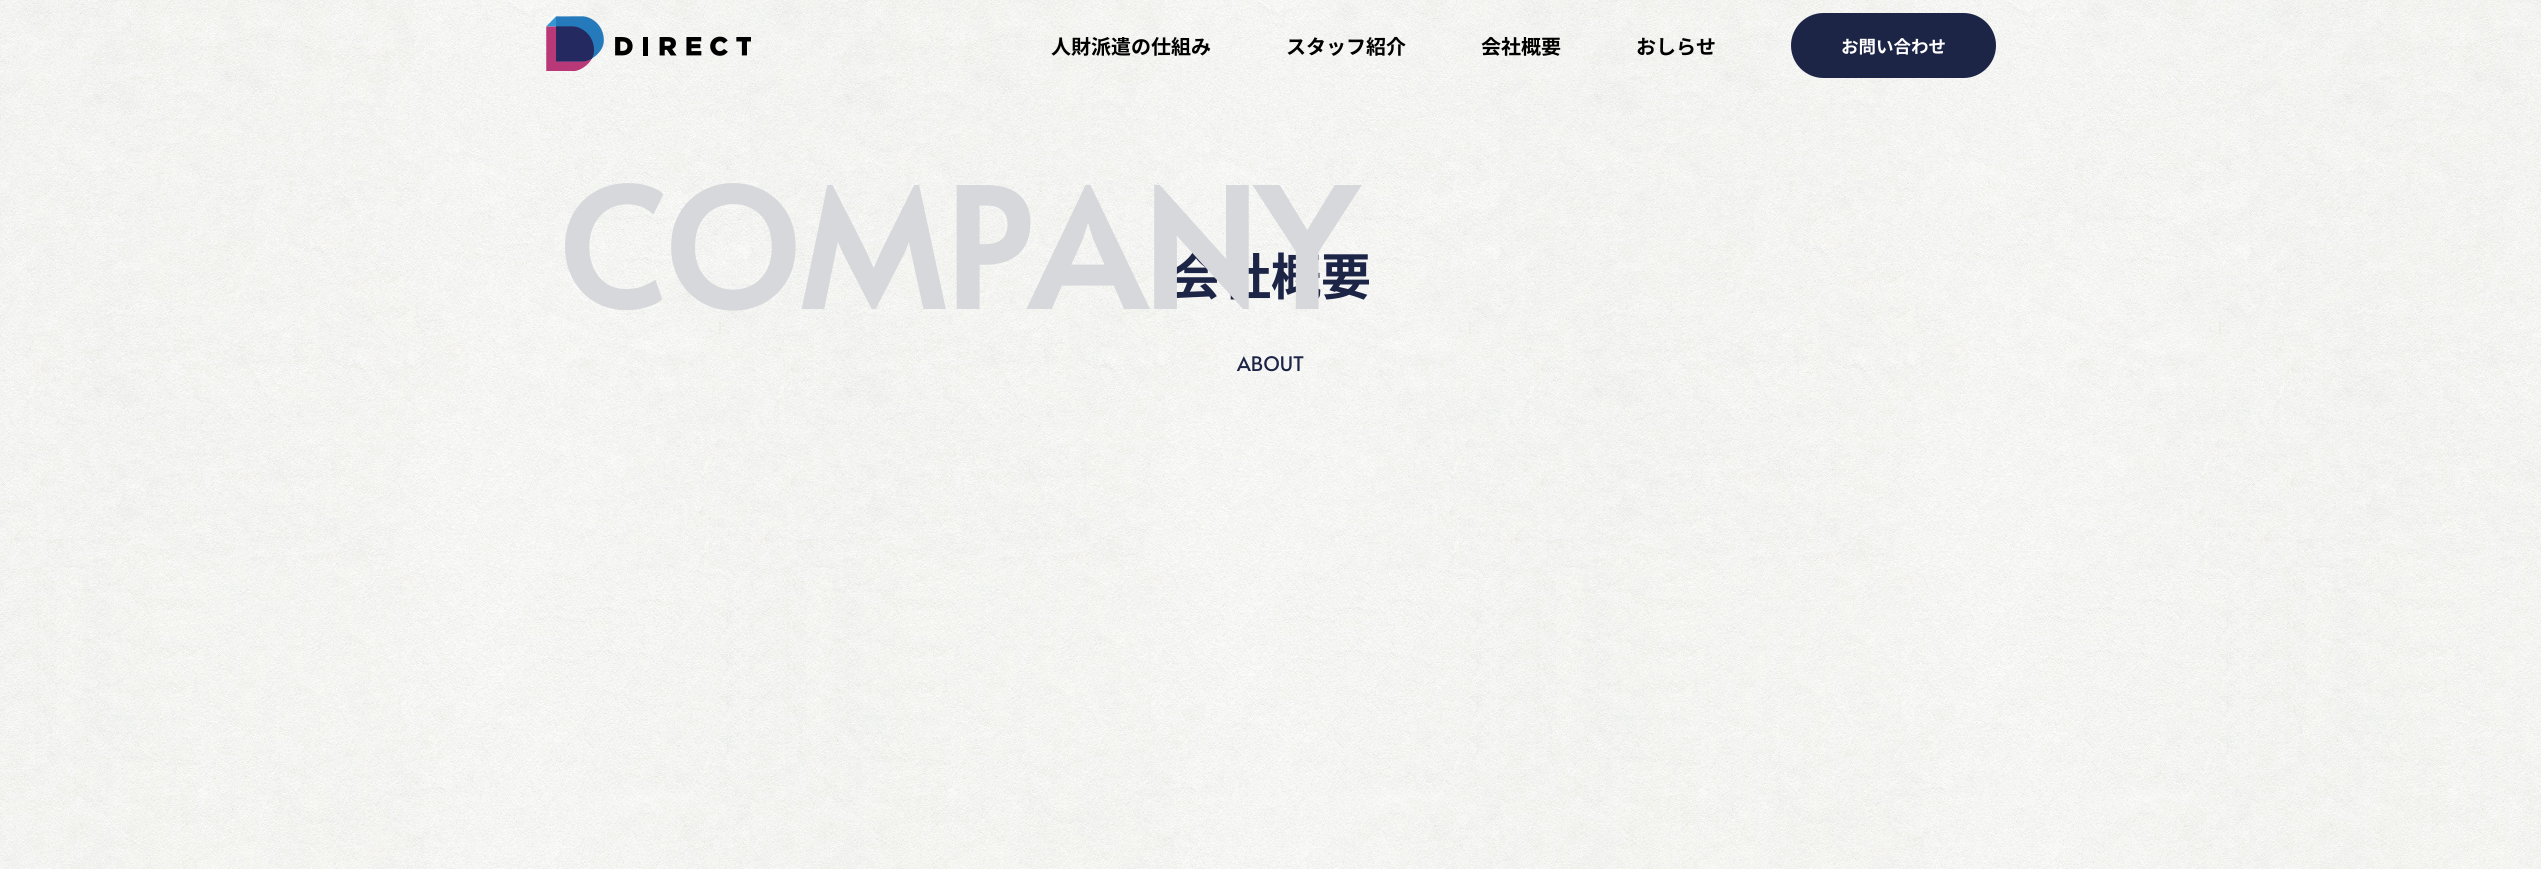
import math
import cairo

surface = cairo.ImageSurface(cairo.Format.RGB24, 2541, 869)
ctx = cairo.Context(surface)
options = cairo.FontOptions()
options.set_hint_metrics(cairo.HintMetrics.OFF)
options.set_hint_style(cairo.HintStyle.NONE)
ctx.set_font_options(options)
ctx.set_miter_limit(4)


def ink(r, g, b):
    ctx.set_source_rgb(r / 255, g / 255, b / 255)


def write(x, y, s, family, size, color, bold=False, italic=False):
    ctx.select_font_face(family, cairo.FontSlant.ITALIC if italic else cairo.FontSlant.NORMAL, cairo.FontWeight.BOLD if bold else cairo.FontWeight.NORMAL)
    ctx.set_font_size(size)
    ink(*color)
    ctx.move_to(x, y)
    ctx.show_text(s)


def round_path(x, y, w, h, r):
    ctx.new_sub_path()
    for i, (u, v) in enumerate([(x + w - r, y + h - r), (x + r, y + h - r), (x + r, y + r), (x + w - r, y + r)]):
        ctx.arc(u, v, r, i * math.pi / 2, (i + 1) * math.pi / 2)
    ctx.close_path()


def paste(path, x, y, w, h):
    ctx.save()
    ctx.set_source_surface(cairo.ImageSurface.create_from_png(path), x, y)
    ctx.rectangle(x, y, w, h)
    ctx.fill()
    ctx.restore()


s1 = dict(family="Noto Sans JP", size=20, color=(0, 0, 0), bold=True)
s2 = dict(family="Noto Sans JP", size=17.5, color=(255, 255, 255), bold=True)
s3 = dict(family="Noto Sans JP", size=50, color=(29, 37, 71), bold=True)
s4 = dict(family="Alata", size=162.5, color=(215, 216, 219), bold=True)
s5 = dict(family="Alata", size=20, color=(29, 37, 71))

ink(255, 255, 255)
ctx.paint()
paste("pic1.png", 0, 0, 2541, 869)
paste("pic2.png", 546, 16, 205, 55)
write(1051, 54, "人財派遣の仕組み", **s1)
write(1286, 54, "スタッフ紹介", **s1)
write(1481, 54, "会社概要", **s1)
write(1636, 54, "おしらせ", **s1)
ink(29, 37, 71)
round_path(1791, 13, 205, 65, 32.5)
ctx.fill()
write(1841, 53, "お問い合わせ", **s2)
write(1171, 295, "会社概要", **s3)
write(558, 309, "COMPANY", **s4)
write(1237, 371, "ABOUT", **s5)
surface.write_to_png("screenshot.png")
